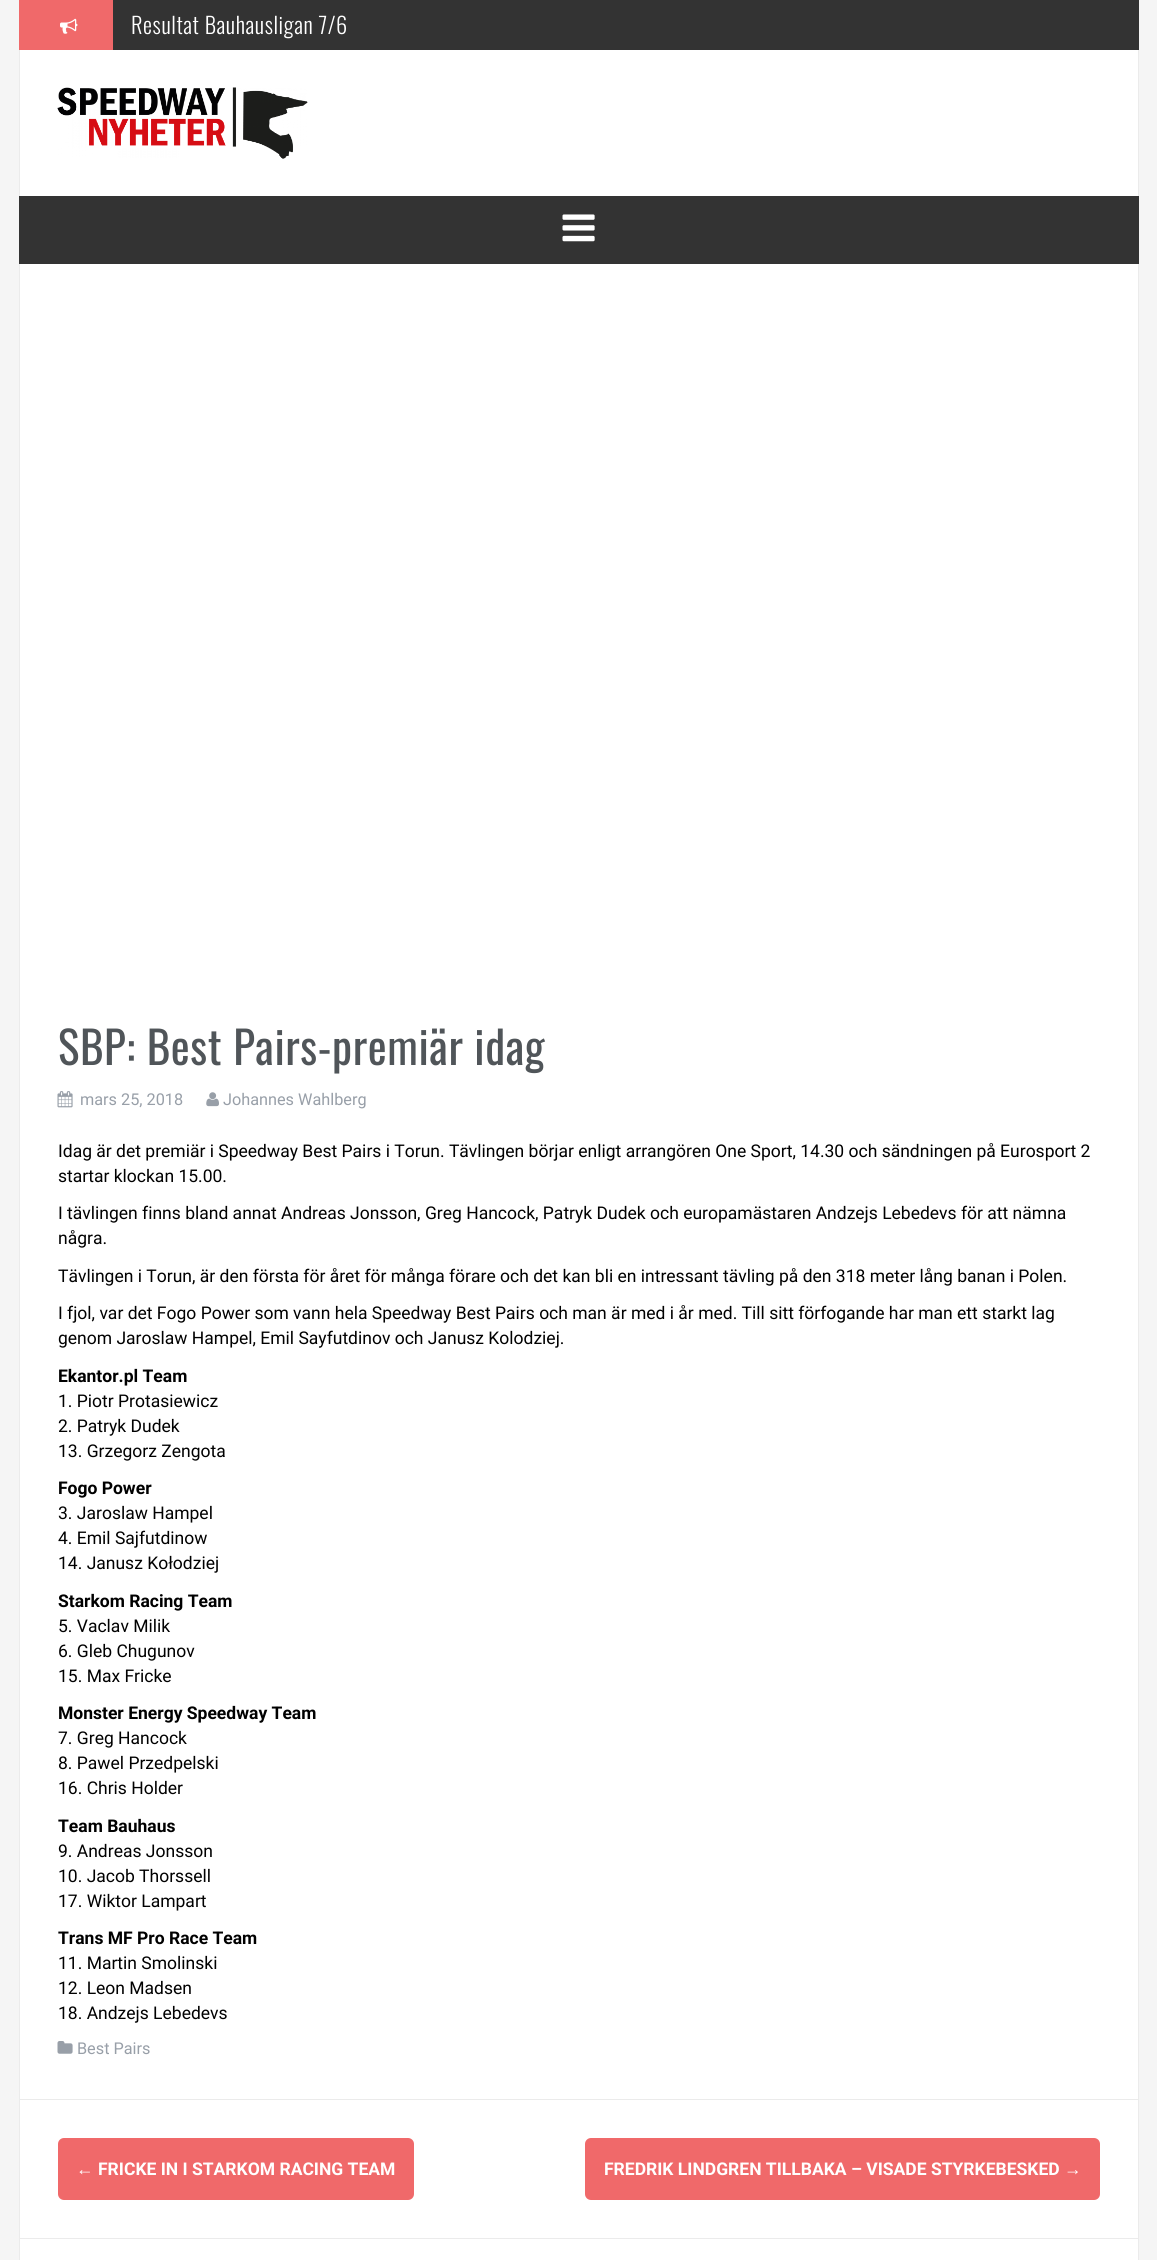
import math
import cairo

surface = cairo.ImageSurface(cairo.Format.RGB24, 1157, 2260)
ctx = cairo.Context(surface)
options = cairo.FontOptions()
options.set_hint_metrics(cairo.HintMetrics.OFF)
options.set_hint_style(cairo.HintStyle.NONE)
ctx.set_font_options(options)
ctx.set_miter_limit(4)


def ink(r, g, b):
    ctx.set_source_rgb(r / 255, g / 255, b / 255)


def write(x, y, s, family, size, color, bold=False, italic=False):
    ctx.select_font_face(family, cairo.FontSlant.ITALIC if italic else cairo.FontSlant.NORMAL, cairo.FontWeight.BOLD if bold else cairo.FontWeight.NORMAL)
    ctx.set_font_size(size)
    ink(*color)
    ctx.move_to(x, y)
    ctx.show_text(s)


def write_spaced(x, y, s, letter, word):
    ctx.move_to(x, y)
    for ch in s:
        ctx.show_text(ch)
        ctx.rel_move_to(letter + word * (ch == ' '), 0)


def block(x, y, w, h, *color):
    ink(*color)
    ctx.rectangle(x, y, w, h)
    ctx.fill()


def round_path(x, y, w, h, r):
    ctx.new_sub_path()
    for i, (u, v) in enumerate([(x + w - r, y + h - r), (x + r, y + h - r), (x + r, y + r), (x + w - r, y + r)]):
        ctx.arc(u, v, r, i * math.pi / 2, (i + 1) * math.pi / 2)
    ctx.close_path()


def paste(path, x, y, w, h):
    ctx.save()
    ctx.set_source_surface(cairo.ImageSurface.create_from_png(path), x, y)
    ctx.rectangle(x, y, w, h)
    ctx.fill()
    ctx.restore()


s1 = dict(family="Roboto", size=16.25, color=(152, 159, 168))
s2 = dict(family="Roboto", size=17.5, color=(0, 0, 0))
s3 = dict(family="Roboto", size=17.5, color=(0, 0, 0), bold=True)
s4 = dict(family="Liberation Sans", size=17.5, color=(255, 255, 255), bold=True)
s5 = dict(family="Roboto", size=17.5, color=(255, 255, 255), bold=True)

ink(245, 245, 245)
ctx.paint()
block(19, 0, 94, 50, 240, 105, 106)
paste("pic1.png", 60, 18, 18, 16)
block(113, 0, 1026, 50, 51, 51, 51)
ctx.select_font_face("Oswald Light")
ctx.set_font_size(22.5)
ink(255, 255, 255)
write_spaced(131, 34, "Resultat Bauhausligan 7/6", 0.6, 0)
block(20, 50, 1118, 146, 255, 255, 255)
block(1138, 50, 1, 146, 235, 235, 235)
block(19, 50, 1, 146, 235, 235, 235)
paste("pic2.png", 57, 87, 251, 72)
block(19, 196, 1120, 68, 51, 51, 51)
paste("pic3.png", 562, 214, 33, 28)
block(20, 264, 1118, 1835, 255, 255, 255)
block(1138, 264, 1, 1836, 235, 235, 235)
block(19, 2099, 1120, 1, 235, 235, 235)
block(19, 264, 1, 1836, 235, 235, 235)
ctx.select_font_face("Oswald")
ctx.set_font_size(45)
ink(80, 85, 89)
write_spaced(58, 1065, "SBP: Best Pairs-premiär idag", 0.6, 0)
paste("pic4.png", 57, 1091, 16, 17)
write(80, 1105, "mars 25, 2018", **s1)
paste("pic5.png", 206, 1092, 13, 15)
write(223, 1105, "Johannes Wahlberg", **s1)
write(58, 1157, "Idag är det premiär i Speedway Best Pairs i Torun. Tävlingen börjar enligt arrangören One Sport, 14.30 och sändningen på Eurosport 2", **s2)
write(58, 1182, "startar klockan 15.00.", **s2)
write(58, 1219, "I tävlingen finns bland annat Andreas Jonsson, Greg Hancock, Patryk Dudek och europamästaren Andzejs Lebedevs för att nämna", **s2)
write(58, 1244, "några.", **s2)
write(58, 1282, "Tävlingen i Torun, är den första för året för många förare och det kan bli en intressant tävling på den 318 meter lång banan i Polen.", **s2)
write(58, 1319, "I fjol, var det Fogo Power som vann hela Speedway Best Pairs och man är med i år med. Till sitt förfogande har man ett starkt lag", **s2)
write(58, 1344, "genom Jaroslaw Hampel, Emil Sayfutdinov och Janusz Kolodziej.", **s2)
write(58, 1382, "Ekantor.pl Team", **s3)
write(58, 1407, "1. Piotr Protasiewicz", **s2)
write(58, 1432, "2. Patryk Dudek", **s2)
write(58, 1457, "13. Grzegorz Zengota", **s2)
write(58, 1494, "Fogo Power", **s3)
write(58, 1519, "3. Jaroslaw Hampel", **s2)
write(58, 1544, "4. Emil Sajfutdinow", **s2)
write(58, 1569, "14. Janusz Kołodziej", **s2)
write(58, 1607, "Starkom Racing Team", **s3)
write(58, 1632, "5. Vaclav Milik", **s2)
write(58, 1657, "6. Gleb Chugunov", **s2)
write(58, 1682, "15. Max Fricke", **s2)
write(58, 1719, "Monster Energy Speedway Team", **s3)
write(58, 1744, "7. Greg Hancock", **s2)
write(58, 1769, "8. Pawel Przedpelski", **s2)
write(58, 1794, "16. Chris Holder", **s2)
write(58, 1832, "Team Bauhaus", **s3)
write(58, 1857, "9. Andreas Jonsson", **s2)
write(58, 1882, "10. Jacob Thorssell", **s2)
write(58, 1907, "17. Wiktor Lampart", **s2)
write(58, 1944, "Trans MF Pro Race Team", **s3)
write(58, 1969, "11. Martin Smolinski", **s2)
write(58, 1994, "12. Leon Madsen", **s2)
write(58, 2019, "18. Andzejs Lebedevs", **s2)
paste("pic6.png", 57, 2041, 16, 13)
write(77, 2054, "Best Pairs", **s1)
block(20, 2239, 1118, 21, 255, 255, 255)
block(1138, 2100, 1, 160, 235, 235, 235)
block(19, 2239, 1, 21, 235, 235, 235)
block(20, 2100, 1118, 138, 255, 255, 255)
block(19, 2238, 1120, 1, 235, 235, 235)
block(19, 2100, 1, 139, 235, 235, 235)
ink(240, 105, 106)
round_path(58, 2138, 356, 62, 6)
ctx.fill()
write(76, 2175, "←", **s4)
write(98, 2175, "FRICKE IN I STARKOM RACING TEAM", **s5)
ink(240, 105, 106)
round_path(585, 2138, 515, 62, 6)
ctx.fill()
write(604, 2175, "FREDRIK LINDGREN TILLBAKA – VISADE STYRKEBESKED", **s5)
write(1064, 2175, "→", **s4)
surface.write_to_png("screenshot.png")
